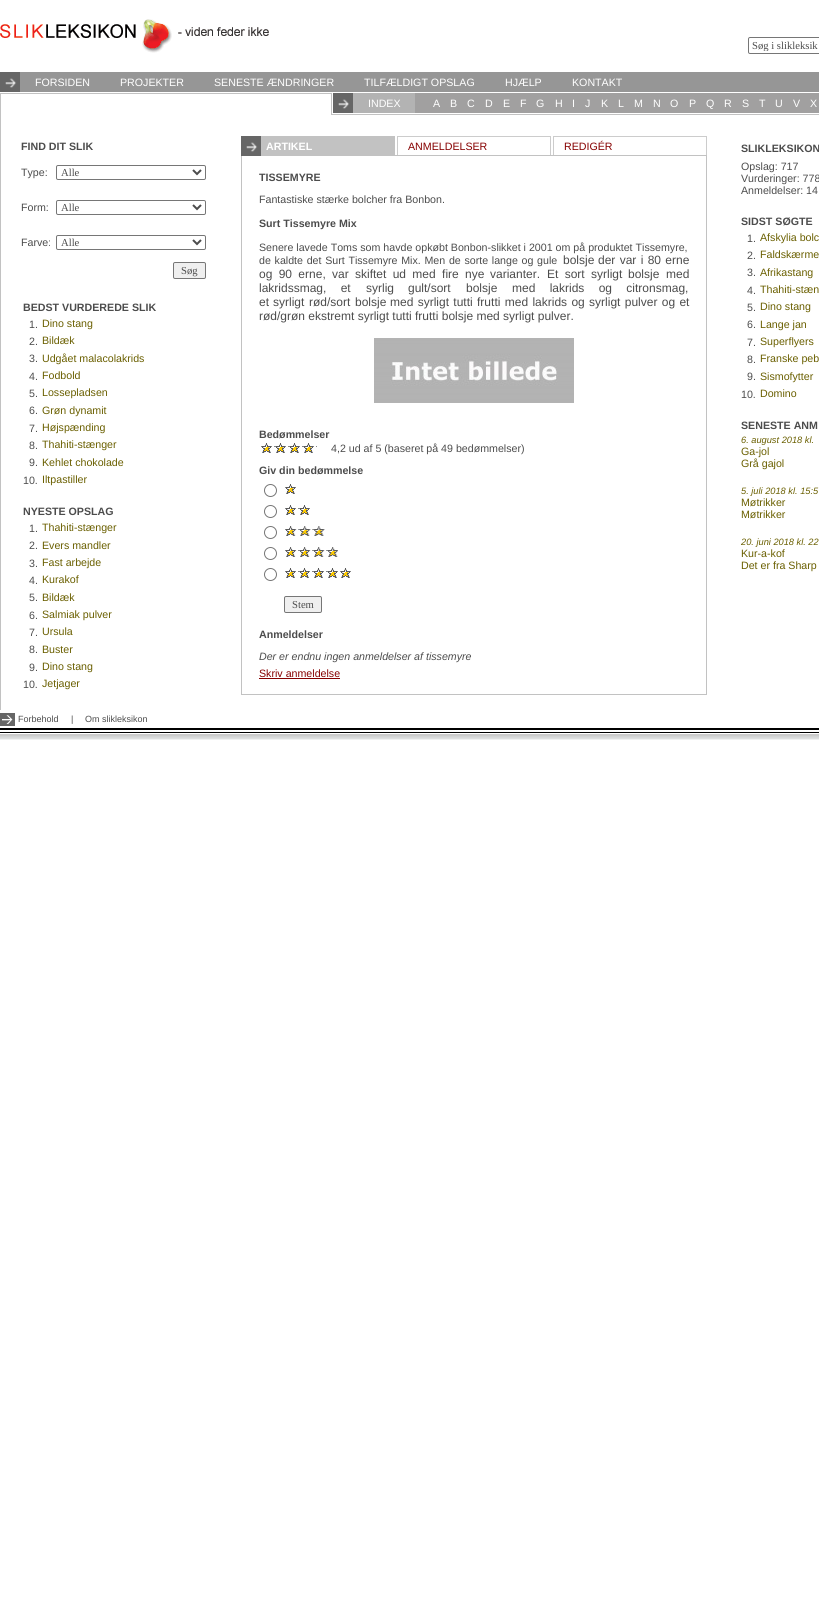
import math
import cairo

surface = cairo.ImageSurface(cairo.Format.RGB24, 819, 1600)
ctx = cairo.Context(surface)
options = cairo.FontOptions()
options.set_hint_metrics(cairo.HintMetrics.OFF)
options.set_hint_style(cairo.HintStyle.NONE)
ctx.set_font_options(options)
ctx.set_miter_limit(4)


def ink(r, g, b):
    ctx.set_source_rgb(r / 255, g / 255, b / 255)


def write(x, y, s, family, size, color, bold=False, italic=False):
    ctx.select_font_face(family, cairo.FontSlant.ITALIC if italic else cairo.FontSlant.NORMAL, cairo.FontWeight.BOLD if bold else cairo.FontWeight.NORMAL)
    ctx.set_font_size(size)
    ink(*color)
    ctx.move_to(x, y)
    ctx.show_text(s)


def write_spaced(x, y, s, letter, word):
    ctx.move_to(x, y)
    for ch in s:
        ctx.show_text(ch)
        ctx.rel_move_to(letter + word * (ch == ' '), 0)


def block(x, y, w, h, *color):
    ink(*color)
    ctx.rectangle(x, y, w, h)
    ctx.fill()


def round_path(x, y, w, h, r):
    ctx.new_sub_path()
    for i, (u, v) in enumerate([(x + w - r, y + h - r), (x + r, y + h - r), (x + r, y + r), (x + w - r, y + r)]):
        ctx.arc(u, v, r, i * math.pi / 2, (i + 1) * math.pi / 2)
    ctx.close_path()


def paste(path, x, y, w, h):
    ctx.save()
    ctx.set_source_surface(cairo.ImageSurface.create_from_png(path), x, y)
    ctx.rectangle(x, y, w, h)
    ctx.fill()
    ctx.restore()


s1 = dict(family="Liberation Serif", size=10.65, color=(76, 76, 76))
s2 = dict(family="Liberation Sans", size=10.65, color=(255, 255, 255))
s3 = dict(family="Liberation Sans", size=10.65, color=(76, 76, 76), bold=True)
s4 = dict(family="Liberation Sans", size=10.65, color=(76, 76, 76))
s5 = dict(family="Liberation Sans", size=10.65, color=(106, 95, 0))
s6 = dict(family="Liberation Sans", size=10.65, color=(255, 255, 255), bold=True)
s7 = dict(family="Liberation Sans", size=10.65, color=(134, 0, 0))
s8 = dict(family="Liberation Sans", size=12, color=(76, 76, 76))
s9 = dict(family="Liberation Sans", size=10.65, color=(76, 76, 76), italic=True)
s10 = dict(family="Liberation Sans", size=9.25, color=(106, 95, 0), italic=True)
s11 = dict(family="Liberation Sans", size=9, color=(76, 76, 76))

ink(255, 255, 255)
ctx.paint()
paste("pic1.png", 0, 19, 269, 34)
round_path(748.5, 37.5, 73, 16, 1.5)
ink(118, 118, 118)
ctx.set_line_width(1)
ctx.stroke()
ctx.save()
ctx.rectangle(752, 40, 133, 11)
ctx.clip()
write(752, 49, "Søg i slikleksik", **s1)
ctx.restore()
block(20, 72, 799, 20, 150, 150, 150)
paste("pic2.png", 0, 72, 20, 20)
write(35, 86, "FORSIDEN", **s2)
write(120, 86, "PROJEKTER", **s2)
write(214, 86, "SENESTE ÆNDRINGER", **s2)
write(364, 86, "TILFÆLDIGT OPSLAG", **s2)
write(505, 86, "HJÆLP", **s2)
write(572, 86, "KONTAKT", **s2)
block(0, 93, 1, 617, 194, 194, 194)
block(1, 93, 330, 1, 194, 194, 194)
block(331, 114, 488, 1, 194, 194, 194)
block(331, 93, 1, 22, 194, 194, 194)
block(415, 93, 404, 20, 161, 160, 160)
paste("pic3.png", 333, 93, 20, 20)
block(353, 93, 62, 20, 179, 179, 179)
write(368, 107, "INDEX", **s2)
write(433, 107, "A", **s2)
write(450, 107, "B", **s2)
write(467, 107, "C", **s2)
write(485, 107, "D", **s2)
write(503, 107, "E", **s2)
write(520, 107, "F", **s2)
write(536, 107, "G", **s2)
write(555, 107, "H", **s2)
write(572, 107, "I", **s2)
write(585, 107, "J", **s2)
write(601, 107, "K", **s2)
write(618, 107, "L", **s2)
write(634, 107, "M", **s2)
write(653, 107, "N", **s2)
write(670, 107, "O", **s2)
write(689, 107, "P", **s2)
write(706, 107, "Q", **s2)
write(724, 107, "R", **s2)
write(742, 107, "S", **s2)
write(759, 107, "T", **s2)
write(775, 107, "U", **s2)
write(793, 107, "V", **s2)
write(810, 107, "X", **s2)
write(21, 150, "FIND DIT SLIK", **s3)
write(21, 176, "Type:", **s4)
round_path(56.5, 165.5, 149, 14, 1.5)
ink(118, 118, 118)
ctx.stroke()
ctx.new_path()
ctx.move_to(193, 170)
ctx.line_to(197, 174)
ctx.line_to(201, 170)
ink(76, 76, 76)
ctx.set_line_width(2)
ctx.stroke()
write(61, 176, "Alle", **s1)
write(21, 211, "Form:", **s4)
round_path(56.5, 200.5, 149, 14, 1.5)
ink(118, 118, 118)
ctx.set_line_width(1)
ctx.stroke()
ctx.new_path()
ctx.move_to(193, 205)
ctx.line_to(197, 209)
ctx.line_to(201, 205)
ink(76, 76, 76)
ctx.set_line_width(2)
ctx.stroke()
write(61, 211, "Alle", **s1)
write(21, 246, "Farve:", **s4)
round_path(56.5, 235.5, 149, 14, 1.5)
ink(118, 118, 118)
ctx.set_line_width(1)
ctx.stroke()
ctx.new_path()
ctx.move_to(193, 240)
ctx.line_to(197, 244)
ctx.line_to(201, 240)
ink(76, 76, 76)
ctx.set_line_width(2)
ctx.stroke()
write(61, 246, "Alle", **s1)
ink(239, 239, 239)
round_path(173.5, 262.5, 32, 16, 1.5)
ctx.fill_preserve()
ink(118, 118, 118)
ctx.set_line_width(1)
ctx.stroke()
write(181, 274, "Søg", **s1)
write(23, 311, "BEDST VURDEREDE SLIK", **s3)
write(29, 328, "1.", **s4)
write(42, 327, "Dino stang", **s5)
write(29, 345, "2.", **s4)
write(42, 344, "Bildæk", **s5)
write(29, 362, "3.", **s4)
write(42, 362, "Udgået malacolakrids", **s5)
write(29, 380, "4.", **s4)
write(42, 379, "Fodbold", **s5)
write(29, 397, "5.", **s4)
write(42, 396, "Lossepladsen", **s5)
write(29, 414, "6.", **s4)
write(42, 414, "Grøn dynamit", **s5)
write(29, 432, "7.", **s4)
write(42, 431, "Højspænding", **s5)
write(29, 449, "8.", **s4)
write(42, 448, "Thahiti-stænger", **s5)
write(29, 466, "9.", **s4)
write(42, 466, "Kehlet chokolade", **s5)
write(23, 484, "10.", **s4)
write(42, 483, "Iltpastiller", **s5)
write(23, 515, "NYESTE OPSLAG", **s3)
write(29, 532, "1.", **s4)
write(42, 531, "Thahiti-stænger", **s5)
write(29, 549, "2.", **s4)
write(42, 549, "Evers mandler", **s5)
write(29, 567, "3.", **s4)
write(42, 566, "Fast arbejde", **s5)
write(29, 584, "4.", **s4)
write(42, 583, "Kurakof", **s5)
write(29, 601, "5.", **s4)
write(42, 601, "Bildæk", **s5)
write(29, 619, "6.", **s4)
write(42, 618, "Salmiak pulver", **s5)
write(29, 636, "7.", **s4)
write(42, 635, "Ursula", **s5)
write(29, 653, "8.", **s4)
write(42, 653, "Buster", **s5)
write(29, 671, "9.", **s4)
write(42, 670, "Dino stang", **s5)
write(23, 688, "10.", **s4)
write(42, 687, "Jetjager", **s5)
block(261, 136, 134, 19, 194, 194, 194)
ctx.rectangle(241.5, 155.5, 465, 539)
ctx.stroke()
paste("pic2.png", 241, 136, 20, 20)
write(266, 150, "ARTIKEL", **s6)
block(397, 136, 154, 1, 204, 204, 204)
block(550, 136, 1, 19, 204, 204, 204)
block(397, 136, 1, 19, 204, 204, 204)
write(408, 150, "ANMELDELSER", **s7)
block(553, 136, 154, 1, 204, 204, 204)
block(706, 136, 1, 19, 204, 204, 204)
block(553, 136, 1, 19, 204, 204, 204)
write(564, 150, "REDIGÉR", **s7)
write(259, 181, "TISSEMYRE", **s3)
write(259, 203, "Fantastiske stærke bolcher fra Bonbon.", **s4)
write(259, 227, "Surt Tissemyre Mix", **s3)
write(259, 251, "Senere lavede Toms som havde opkøbt Bonbon-slikket i 2001 om på produktet Tissemyre,", **s4)
write_spaced(259, 264, "de kaldte det Surt Tissemyre Mix. Men de sorte lange og gule", 0, 0.75)
write(563, 264, "bolsje", **s8)
write_spaced(598, 264, "der var i 80 erne", 0, 1)
write_spaced(259, 278, "og 90 erne,", 0, 3)
write_spaced(332, 278, "var skiftet ud med fire nye", 0, 3)
write(490, 278, "varianter.", **s8)
write_spaced(547, 278, "Et sort syrligt", 0, 3)
write(628, 278, "bolsje", **s8)
write(666, 278, "med", **s8)
write_spaced(259, 292, "lakridssmag, et", 0, 11)
write(366, 292, "syrlig", **s8)
write(408, 292, "gult/sort", **s8)
write(466, 292, "bolsje", **s8)
write_spaced(512, 292, "med lakrids og citronsmag,", 0, 11)
write(259, 306, "et", **s8)
write(273, 306, "syrligt", **s8)
write(309, 306, "rød/sort", **s8)
write(355, 306, "bolsje", **s8)
write_spaced(390, 306, "med syrligt tutti frutti med lakrids og syrligt pulver og et", 0, 1)
write(259, 320, "rød/grøn ekstremt syrligt tutti frutti bolsje med syrligt pulver.", **s8)
paste("pic4.png", 374, 338, 200, 65)
write(259, 438, "Bedømmelser", **s3)
paste("pic5.png", 261, 443, 56, 10)
write(331, 452, "4,2 ud af 5 (baseret på 49 bedømmelser)", **s4)
write(259, 474, "Giv din bedømmelse", **s3)
ctx.new_path()
ctx.arc(270.5, 490.5, 6, 0, 2 * math.pi)
ink(118, 118, 118)
ctx.stroke()
paste("pic6.png", 285, 484, 11, 10)
ctx.arc(270.5, 511.5, 6, 0, 2 * math.pi)
ctx.stroke()
paste("pic7.png", 285, 505, 25, 10)
ctx.arc(270.5, 532.5, 6, 0, 2 * math.pi)
ctx.stroke()
paste("pic8.png", 285, 526, 40, 10)
ctx.arc(270.5, 553.5, 6, 0, 2 * math.pi)
ctx.stroke()
paste("pic9.png", 285, 547, 53, 10)
ctx.arc(270.5, 574.5, 6, 0, 2 * math.pi)
ctx.stroke()
paste("pic10.png", 285, 568, 66, 10)
ink(239, 239, 239)
round_path(284.5, 596.5, 37, 16, 1.5)
ctx.fill_preserve()
ink(118, 118, 118)
ctx.stroke()
write(292, 608, "Stem", **s1)
write(259, 638, "Anmeldelser", **s3)
write(259, 660, "Der er endnu ingen anmeldelser af tissemyre", **s9)
write(259, 677, "Skriv anmeldelse", **s7)
block(259, 678, 81, 1, 134, 0, 0)
write(741, 152, "SLIKLEKSIKON", **s3)
write(741, 170, "Opslag: 717", **s4)
write(741, 182, "Vurderinger: 778", **s4)
write(741, 194, "Anmeldelser: 14", **s4)
write(741, 225, "SIDST SØGTE", **s3)
write(747, 242, "1.", **s4)
write(760, 241, "Afskylia bolc", **s5)
write(747, 259, "2.", **s4)
write(760, 258, "Faldskærme", **s5)
write(747, 276, "3.", **s4)
write(760, 276, "Afrikastang", **s5)
write(747, 294, "4.", **s4)
write(760, 293, "Thahiti-stæn", **s5)
write(747, 311, "5.", **s4)
write(760, 310, "Dino stang", **s5)
write(747, 328, "6.", **s4)
write(760, 328, "Lange jan", **s5)
write(747, 346, "7.", **s4)
write(760, 345, "Superflyers", **s5)
write(747, 363, "8.", **s4)
write(760, 362, "Franske peb", **s5)
write(747, 380, "9.", **s4)
write(760, 380, "Sismofytter", **s5)
write(741, 398, "10.", **s4)
write(760, 397, "Domino", **s5)
write(741, 429, "SENESTE ANM", **s3)
write(741, 443, "6. august 2018 kl.", **s10)
write(741, 455, "Ga-jol", **s5)
write(741, 467, "Grå gajol", **s5)
write(741, 494, "5. juli 2018 kl. 15:5", **s10)
write(741, 506, "Møtrikker", **s5)
write(741, 518, "Møtrikker", **s5)
write(741, 545, "20. juni 2018 kl. 22", **s10)
write(741, 557, "Kur-a-kof", **s5)
write(741, 569, "Det er fra Sharp", **s5)
paste("pic11.png", 0, 713, 15, 13)
write(18, 722, "Forbehold", **s11)
write(71, 722, "|", **s11)
write(85, 722, "Om slikleksikon", **s11)
paste("pic12.png", 0, 728, 819, 12)
surface.write_to_png("screenshot.png")
